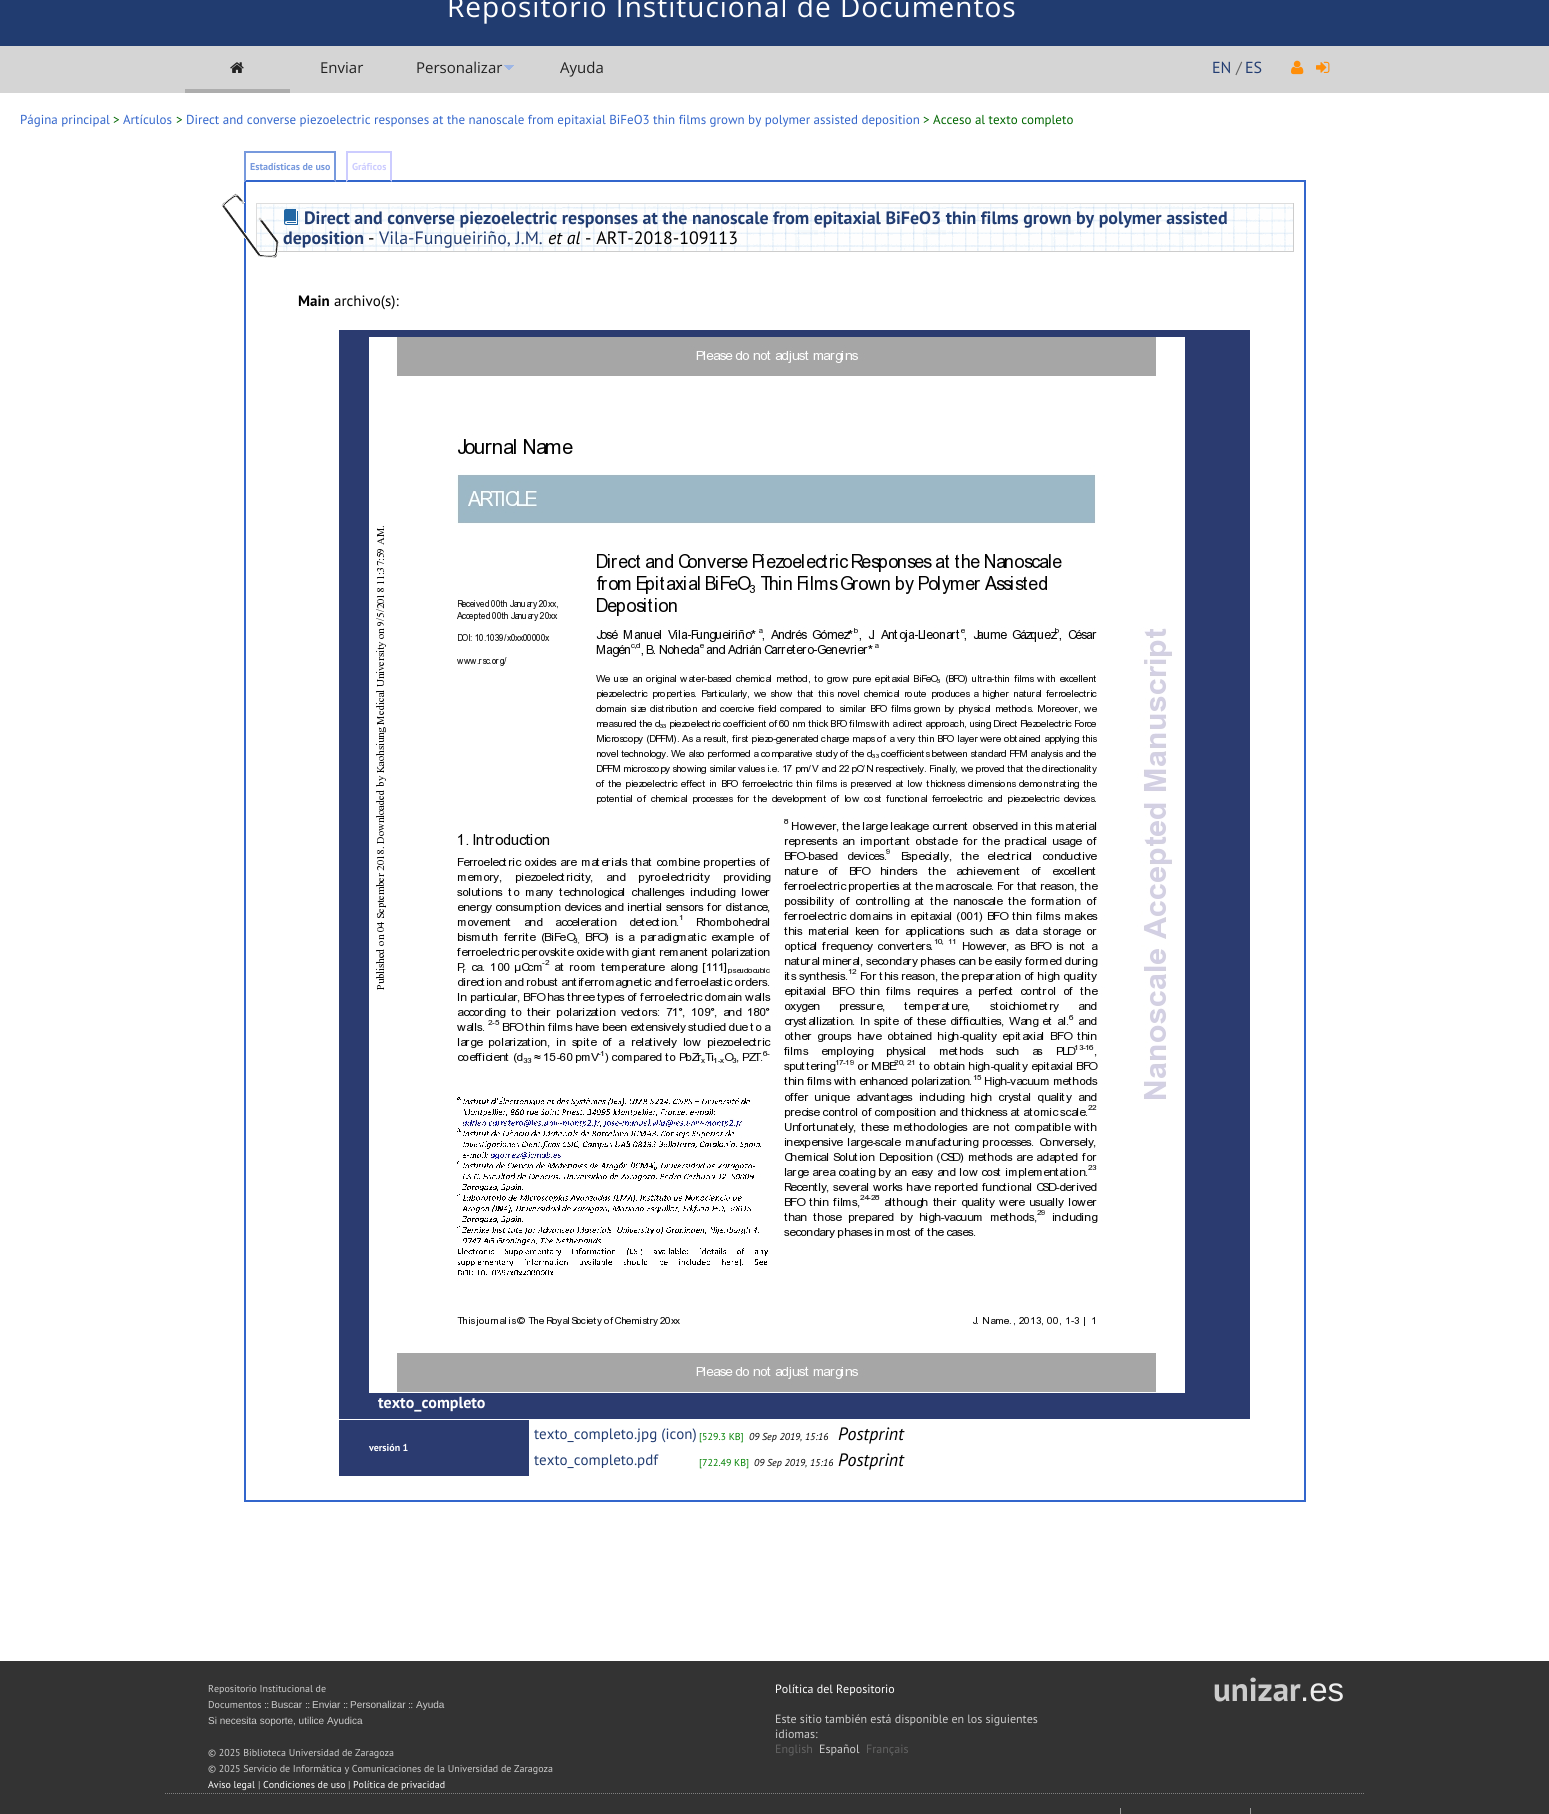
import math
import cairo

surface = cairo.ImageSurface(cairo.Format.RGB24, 1549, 1814)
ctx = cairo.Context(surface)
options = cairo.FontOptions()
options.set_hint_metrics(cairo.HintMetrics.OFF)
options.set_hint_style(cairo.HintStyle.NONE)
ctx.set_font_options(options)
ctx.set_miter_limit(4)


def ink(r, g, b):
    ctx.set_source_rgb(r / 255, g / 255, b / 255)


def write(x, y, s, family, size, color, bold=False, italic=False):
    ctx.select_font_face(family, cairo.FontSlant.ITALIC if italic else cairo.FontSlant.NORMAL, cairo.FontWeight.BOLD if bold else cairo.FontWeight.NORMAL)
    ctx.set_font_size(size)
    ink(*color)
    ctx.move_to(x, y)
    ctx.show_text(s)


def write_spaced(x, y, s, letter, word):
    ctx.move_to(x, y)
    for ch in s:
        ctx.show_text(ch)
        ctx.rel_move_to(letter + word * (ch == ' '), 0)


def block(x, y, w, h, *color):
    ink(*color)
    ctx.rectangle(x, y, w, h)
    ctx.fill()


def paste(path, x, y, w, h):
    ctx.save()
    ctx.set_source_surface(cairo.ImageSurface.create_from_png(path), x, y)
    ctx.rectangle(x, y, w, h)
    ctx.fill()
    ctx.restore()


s1 = dict(family="Open Sans", size=15, color=(34, 34, 34))
s2 = dict(family="PT Sans", size=16, color=(34, 61, 114))
s3 = dict(family="PT Sans", size=16, color=(98, 98, 98))
s4 = dict(family="PT Sans", size=13, color=(51, 102, 204))
s5 = dict(family="PT Sans", size=13, color=(0, 102, 0))
s6 = dict(family="PT Sans", size=10, color=(119, 153, 221), bold=True)
s7 = dict(family="PT Sans", size=10, color=(204, 204, 255), bold=True)
s8 = dict(family="PT Sans", size=17.92, color=(34, 61, 114), bold=True)
s9 = dict(family="PT Sans", size=17.92, color=(0, 0, 0))
s10 = dict(family="PT Sans", size=17.92, color=(34, 61, 114))
s11 = dict(family="PT Sans", size=17.92, color=(0, 0, 0), italic=True)
s12 = dict(family="PT Sans", size=15, color=(0, 0, 0), bold=True)
s13 = dict(family="PT Sans", size=15, color=(0, 0, 0))
s14 = dict(family="PT Sans", size=16, color=(255, 255, 255), bold=True)
s15 = dict(family="PT Sans", size=10, color=(255, 255, 255), bold=True)
s16 = dict(family="PT Sans", size=15, color=(34, 61, 114))
s17 = dict(family="PT Sans", size=10, color=(0, 128, 0))
s18 = dict(family="PT Sans", size=10, color=(0, 0, 0), italic=True)
s19 = dict(family="PT Sans", size=10, color=(204, 204, 204))
s20 = dict(family="Liberation Sans", size=10, color=(204, 204, 204))
s21 = dict(family="PT Sans", size=10, color=(255, 255, 255))
s22 = dict(family="PT Sans", size=12, color=(255, 255, 255))
s23 = dict(family="PT Sans", size=12, color=(204, 204, 204))
s24 = dict(family="PT Sans", size=12, color=(98, 98, 98))
s25 = dict(family="PT Sans", size=33, color=(204, 204, 204), bold=True)
s26 = dict(family="Liberation Sans", size=33, color=(238, 238, 238))

ink(255, 255, 255)
ctx.paint()
block(0, 0, 1549, 46, 33, 60, 112)
ctx.select_font_face("Open Sans")
ctx.set_font_size(28)
ink(255, 255, 255)
write_spaced(447, 17, "Repositorio Institucional de Documentos", 1, 0)
block(0, 46, 1549, 47, 213, 213, 213)
block(185, 89, 105, 4, 173, 173, 173)
paste("pic1.png", 230, 62, 14, 11)
write(320, 73, "Enviar", **s1)
write(416, 73, "Personalizar", **s1)
paste("pic2.png", 504, 65, 10, 5)
write(560, 73, "Ayuda", **s1)
write(1212, 73, "EN", **s2)
write(1236, 73, "/", **s3)
write(1245, 73, "ES", **s2)
paste("pic3.png", 1291, 60, 13, 15)
paste("pic4.png", 1316, 61, 14, 12)
write(20, 124, "Página principal", **s4)
write(113, 124, ">", **s5)
write(123, 124, "Artículos", **s4)
write(176, 124, ">", **s5)
write(186, 124, "Direct and converse piezoelectric responses at the nanoscale from epitaxial BiFeO3 thin films grown by polymer assisted deposition", **s4)
write(923, 124, "> Acceso al texto completo", **s5)
block(336, 180, 970, 2, 51, 102, 204)
block(244, 151, 92, 2, 119, 153, 221)
ctx.new_path()
ctx.move_to(336, 151)
ctx.line_to(336, 182)
ctx.line_to(334, 180)
ctx.line_to(334, 153)
ctx.close_path()
ctx.fill()
ink(51, 102, 204)
ctx.new_path()
ctx.move_to(336, 182)
ctx.line_to(244, 182)
ctx.line_to(246, 180)
ctx.line_to(334, 180)
ctx.close_path()
ctx.fill()
ink(119, 153, 221)
ctx.new_path()
ctx.move_to(244, 182)
ctx.line_to(244, 151)
ctx.line_to(246, 153)
ctx.line_to(246, 180)
ctx.close_path()
ctx.fill()
write(250, 170, "Estadísticas de uso", **s6)
block(346, 180, 46, 2, 255, 255, 255)
block(346, 151, 46, 2, 204, 204, 255)
ctx.new_path()
ctx.move_to(392, 151)
ctx.line_to(392, 182)
ctx.line_to(390, 180)
ctx.line_to(390, 153)
ctx.close_path()
ctx.fill()
ink(51, 102, 204)
ctx.new_path()
ctx.move_to(392, 182)
ctx.line_to(346, 182)
ctx.line_to(348, 180)
ctx.line_to(390, 180)
ctx.close_path()
ctx.fill()
ink(204, 204, 255)
ctx.new_path()
ctx.move_to(346, 182)
ctx.line_to(346, 151)
ctx.line_to(348, 153)
ctx.line_to(348, 180)
ctx.close_path()
ctx.fill()
write(352, 170, "Gráficos", **s7)
block(1304, 182, 2, 1320, 51, 102, 204)
block(244, 1500, 1062, 2, 51, 102, 204)
block(244, 182, 2, 1320, 51, 102, 204)
paste("pic5.png", 257, 204, 1036, 47)
block(256, 203, 1038, 1, 221, 221, 221)
block(1293, 203, 1, 49, 204, 204, 204)
block(256, 251, 1038, 1, 204, 204, 204)
block(256, 203, 1, 49, 221, 221, 221)
paste("pic6.png", 221, 193, 58, 65)
paste("pic7.png", 284, 209, 14, 16)
write(304, 224, "Direct and converse piezoelectric responses at the nanoscale from epitaxial BiFeO3 thin films grown by polymer assisted", **s8)
write(283, 244, "deposition", **s8)
write(368, 244, "-", **s9)
write(379, 244, "Vila-Fungueiriño, J.M.", **s10)
write(548, 244, "et al", **s11)
write(585, 244, "- ART-2018-109113", **s9)
write(298, 306, "Main", **s12)
write(334, 306, "archivo(s):", **s13)
block(339, 330, 911, 1089, 43, 59, 112)
paste("pic8.png", 369, 337, 816, 1056)
write(378, 1408, "texto_completo", **s14)
block(339, 1420, 190, 56, 43, 59, 112)
write(369, 1451, "versión 1", **s15)
write(534, 1439, "texto_completo.jpg (icon)", **s16)
write(699, 1440, "[529.3 KB]", **s17)
write(749, 1440, "09 Sep 2019, 15:16", **s18)
write(838, 1440, "Postprint", **s11)
write(534, 1465, "texto_completo.pdf", **s16)
write(699, 1466, "[722.49 KB]", **s17)
write(754, 1466, "09 Sep 2019, 15:16", **s18)
write(838, 1466, "Postprint", **s11)
block(0, 1661, 1549, 153, 51, 51, 51)
write(208, 1692, "Repositorio Institucional de", **s19)
write(208, 1708, "Documentos ::", **s19)
write(271, 1708, "Buscar", **s20)
write(305, 1708, "::", **s19)
write(312, 1708, "Enviar", **s20)
write(343, 1708, "::", **s19)
write(350, 1708, "Personalizar", **s20)
write(408, 1708, "::", **s19)
write(416, 1708, "Ayuda", **s20)
write(208, 1724, "Si necesita soporte, utilice Ayudica", **s20)
write(208, 1756, "© 2025 Biblioteca Universidad de Zaragoza", **s19)
write(208, 1772, "© 2025 Servicio de Informática y Comunicaciones de la Universidad de Zaragoza", **s19)
write(208, 1788, "Aviso legal", **s21)
write(258, 1788, "|", **s19)
write(263, 1788, "Condiciones de uso", **s21)
write(348, 1788, "|", **s19)
write(353, 1788, "Política de privacidad", **s21)
write(775, 1693, "Política del Repositorio", **s22)
write(775, 1723, "Este sitio también está disponible en los siguientes", **s23)
write(775, 1738, "idiomas:", **s23)
write(775, 1753, "English", **s24)
write(819, 1753, "Español", **s23)
write(866, 1753, "Français", **s24)
write(1213, 1701, "unizar", **s25)
write(1300, 1701, ".es", **s26)
ctx.new_path()
ctx.move_to(165, 1793.5)
ctx.line_to(1365, 1793.5)
ink(128, 128, 128)
ctx.set_line_width(1)
ctx.set_dash([1, 1])
ctx.stroke()
block(1120, 1808, 1, 6, 153, 153, 153)
block(1250, 1808, 1, 6, 153, 153, 153)
surface.write_to_png("screenshot.png")
